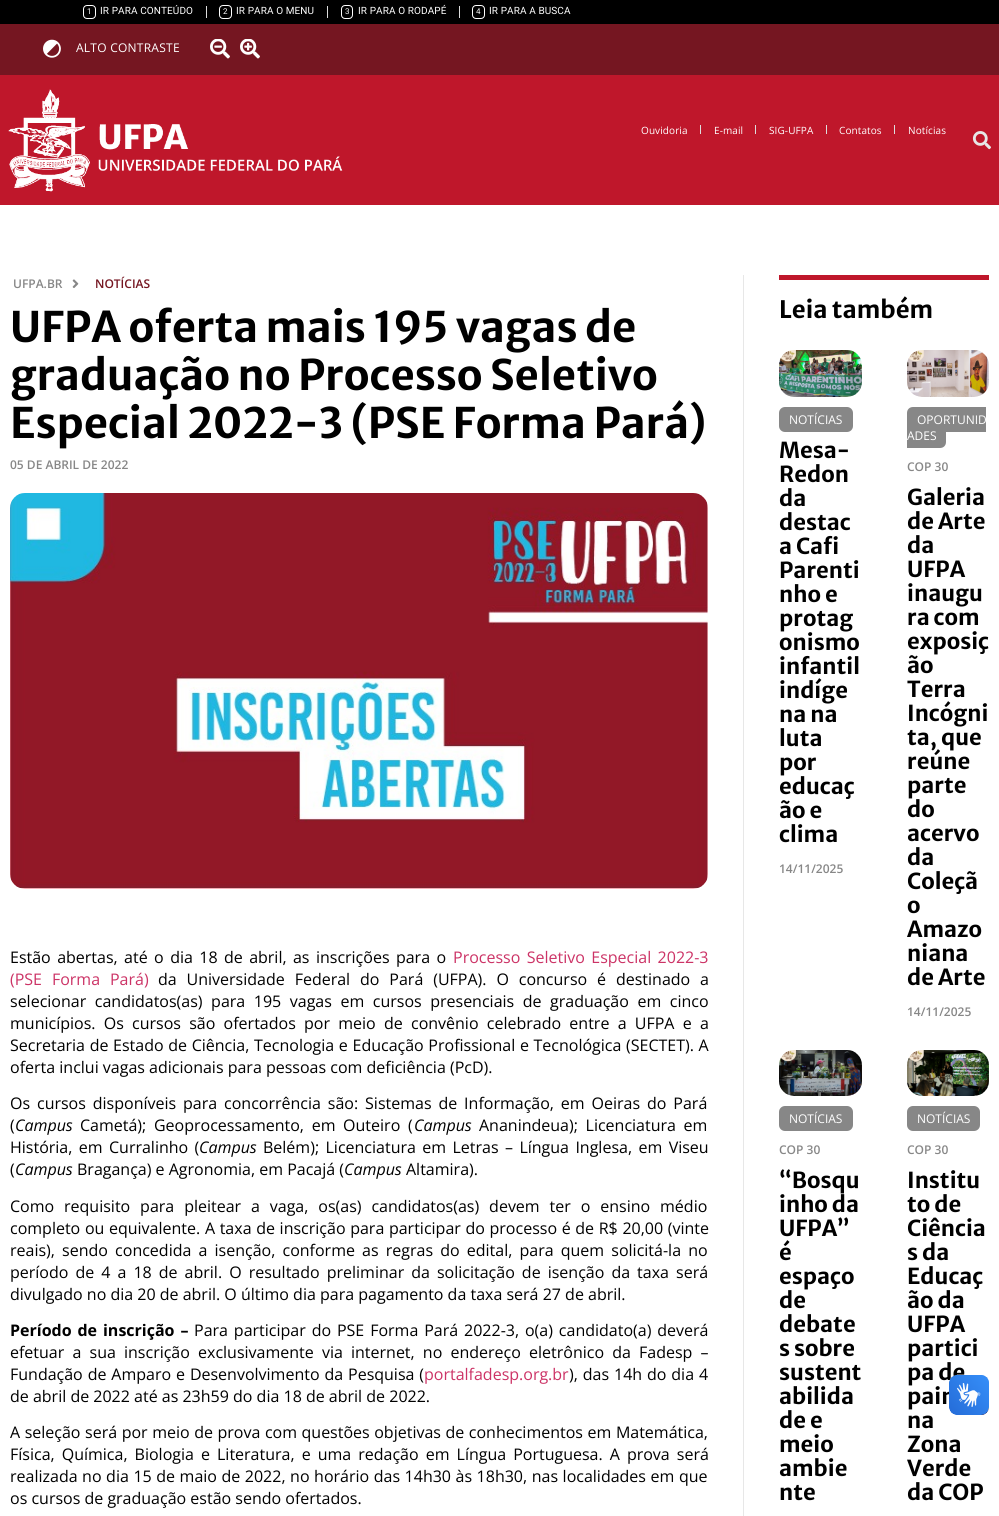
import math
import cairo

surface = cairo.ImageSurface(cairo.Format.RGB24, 999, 1516)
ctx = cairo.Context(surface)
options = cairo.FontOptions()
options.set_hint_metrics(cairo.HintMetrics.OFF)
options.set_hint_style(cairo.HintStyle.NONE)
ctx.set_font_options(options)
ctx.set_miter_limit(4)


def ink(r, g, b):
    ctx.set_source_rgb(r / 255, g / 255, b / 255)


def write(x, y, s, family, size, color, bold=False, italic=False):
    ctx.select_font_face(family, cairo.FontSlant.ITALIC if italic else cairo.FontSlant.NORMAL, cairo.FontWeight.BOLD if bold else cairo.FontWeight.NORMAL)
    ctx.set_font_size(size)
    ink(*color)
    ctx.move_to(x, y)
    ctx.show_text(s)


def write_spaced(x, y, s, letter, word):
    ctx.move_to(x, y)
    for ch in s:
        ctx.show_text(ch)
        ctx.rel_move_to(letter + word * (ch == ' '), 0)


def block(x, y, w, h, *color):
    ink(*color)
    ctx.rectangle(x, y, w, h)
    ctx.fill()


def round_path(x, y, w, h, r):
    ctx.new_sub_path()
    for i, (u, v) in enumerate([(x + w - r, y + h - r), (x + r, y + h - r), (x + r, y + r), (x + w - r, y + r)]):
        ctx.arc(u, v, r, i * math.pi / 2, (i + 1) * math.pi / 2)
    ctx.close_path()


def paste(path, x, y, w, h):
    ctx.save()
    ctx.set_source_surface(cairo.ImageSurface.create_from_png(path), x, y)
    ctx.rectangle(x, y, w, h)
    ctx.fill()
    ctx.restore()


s1 = dict(family="Open Sans SemiBold", size=12, color=(135, 135, 135))
s2 = dict(family="Open Sans SemiBold", size=12, color=(117, 22, 33))
s3 = dict(family="Merriweather Sans", size=42, color=(0, 0, 0), bold=True)
s4 = dict(family="Open Sans", size=16, color=(0, 0, 0))
s5 = dict(family="Open Sans", size=16, color=(0, 0, 0), italic=True)
s6 = dict(family="Open Sans", size=16, color=(204, 51, 102))
s7 = dict(family="Merriweather Sans", size=24, color=(0, 0, 0), bold=True)
s8 = dict(family="Open Sans", size=12, color=(255, 255, 255))
s9 = dict(family="Merriweather Sans", size=22, color=(0, 0, 0), bold=True)

ink(255, 255, 255)
ctx.paint()
block(0, 0, 999, 24, 0, 0, 0)
round_path(83.5, 5.5, 12, 13, 3.5)
ink(255, 255, 255)
ctx.set_line_width(1)
ctx.stroke()
ctx.select_font_face("Roboto")
ctx.set_font_size(8)
write_spaced(87, 14, "1", 0.1, 0)
ctx.set_font_size(10)
write_spaced(100, 14, "IR PARA CONTEÚDO", 0.1, 0)
block(206, 6, 1, 12, 221, 221, 221)
round_path(219.5, 5.5, 12, 13, 3.5)
ink(255, 255, 255)
ctx.stroke()
ctx.set_font_size(8)
write_spaced(223, 14, "2", 0.1, 0)
ctx.set_font_size(10)
write_spaced(236, 14, "IR PARA O MENU", 0.1, 0)
block(327, 6, 1, 12, 221, 221, 221)
round_path(341.5, 5.5, 11, 13, 3.5)
ink(255, 255, 255)
ctx.stroke()
ctx.set_font_size(8)
write_spaced(345, 14, "3", 0.1, 0)
ctx.set_font_size(10)
write_spaced(358, 14, "IR PARA O RODAPÉ", 0.1, 0)
block(459, 6, 1, 12, 221, 221, 221)
round_path(472.5, 5.5, 12, 13, 3.5)
ink(255, 255, 255)
ctx.stroke()
ctx.set_font_size(8)
write_spaced(476, 14, "4", 0.1, 0)
ctx.set_font_size(10)
write_spaced(489, 14, "IR PARA A BUSCA", 0.1, 0)
block(0, 24, 999, 51, 117, 22, 33)
paste("pic1.png", 43, 39, 18, 19)
ctx.select_font_face("Open Sans")
ctx.set_font_size(12)
ink(255, 255, 255)
write_spaced(76, 52, "ALTO CONTRASTE", 0.25, 0)
paste("pic2.png", 210, 39, 20, 20)
paste("pic3.png", 240, 39, 20, 20)
block(0, 75, 999, 130, 191, 23, 43)
paste("pic4.png", 8, 89, 335, 103)
ctx.set_font_size(10)
ink(255, 255, 255)
write_spaced(641, 134, "Ouvidoria", 0.1, 0)
block(700, 125, 1, 9, 221, 221, 221)
ink(255, 255, 255)
write_spaced(714, 134, "E-mail", 0.1, 0)
block(755, 125, 1, 9, 221, 221, 221)
ink(255, 255, 255)
write_spaced(769, 134, "SIG-UFPA", 0.1, 0)
block(826, 125, 1, 9, 221, 221, 221)
ink(255, 255, 255)
write_spaced(839, 134, "Contatos", 0.1, 0)
block(894, 125, 1, 9, 221, 221, 221)
ink(255, 255, 255)
write_spaced(908, 134, "Notícias", 0.1, 0)
paste("pic5.png", 972, 131, 19, 19)
block(743, 275, 1, 1241, 231, 231, 231)
write(13, 288, "UFPA.BR", **s1)
paste("pic6.png", 72, 279, 7, 9)
write(95, 288, "NOTÍCIAS", **s2)
write(10, 342, "UFPA oferta mais 195 vagas de", **s3)
write(10, 390, "graduação no Processo Seletivo", **s3)
write(10, 438, "Especial 2022-3 (PSE Forma Pará)", **s3)
write(10, 469, "05 DE ABRIL DE 2022", **s1)
paste("pic7.png", 10, 493, 698, 396)
ctx.select_font_face("Open Sans")
ctx.set_font_size(16)
ink(0, 0, 0)
write_spaced(10, 963, "Estão abertas, até o dia 18 de abril, as inscrições para o", 0, 2.25)
ink(204, 51, 102)
write_spaced(453, 963, "Processo Seletivo Especial 2022-3", 0, 2.25)
write_spaced(10, 985, "(PSE Forma Pará)", 0, 5.75)
ink(0, 0, 0)
write_spaced(158, 985, "da Universidade Federal do Pará (UFPA). O concurso é destinado a", 0, 5.75)
write_spaced(10, 1007, "selecionar candidatos(as) para 195 vagas em cursos presenciais de graduação em cinco", 0, 4.4)
write_spaced(10, 1029, "municípios. Os cursos são ofertados por meio de convênio celebrado entre a UFPA e a", 0, 4.1)
write_spaced(10, 1051, "Secretaria de Estado de Ciência, Tecnologia e Educação Profissional e Tecnológica (SECTET). A", 0, 0.5)
write(10, 1073, "oferta inclui vagas adicionais para pessoas com deficiência (PcD).", **s4)
write_spaced(10, 1109, "Os cursos disponíveis para concorrência são: Sistemas de Informação, em Oeiras do Pará", 0, 2.75)
write(10, 1131, "(", **s4)
write(15, 1131, "Campus", **s5)
ctx.select_font_face("Open Sans")
write_spaced(80, 1131, "Cametá); Geoprocessamento, em Outeiro (", 0, 3.5)
write(414, 1131, "Campus", **s5)
ctx.select_font_face("Open Sans")
write_spaced(479, 1131, "Ananindeua); Licenciatura em", 0, 3.5)
write_spaced(10, 1153, "História, em Curralinho (", 0, 2.25)
write(199, 1153, "Campus", **s5)
ctx.select_font_face("Open Sans")
write_spaced(263, 1153, "Belém); Licenciatura em Letras – Língua Inglesa, em Viseu", 0, 2.25)
write(10, 1175, "(", **s4)
write(15, 1175, "Campus", **s5)
write(77, 1175, "Bragança) e Agronomia, em Pacajá (", **s4)
write(344, 1175, "Campus", **s5)
write(406, 1175, "Altamira).", **s4)
write_spaced(10, 1212, "Como requisito para pleitear a vaga, os(as) candidatos(as) devem ter o ensino médio", 0, 5.75)
write_spaced(10, 1234, "completo ou equivalente. A taxa de inscrição para participar do processo é de R$ 20,00 (vinte", 0, 0.5)
write_spaced(10, 1256, "reais), sendo concedida a isenção, conforme as regras do edital, para quem solicitá-la no", 0, 3)
write_spaced(10, 1278, "período de 4 a 18 de abril. O resultado preliminar da solicitação de isenção da taxa será", 0, 2.9)
write(10, 1300, "divulgado no dia 20 de abril. O último dia para pagamento da taxa será 27 de abril.", **s4)
ctx.select_font_face("Open Sans", cairo.FontSlant.NORMAL, cairo.FontWeight.BOLD)
write_spaced(10, 1336, "Período de inscrição –", 0, 1.75)
ctx.select_font_face("Open Sans")
write_spaced(194, 1336, "Para participar do PSE Forma Pará 2022-3, o(a) candidato(a) deverá", 0, 1.75)
write_spaced(10, 1358, "efetuar a sua inscrição exclusivamente via internet, no endereço eletrônico da Fadesp –", 0, 4)
write_spaced(10, 1380, "Fundação de Amparo e Desenvolvimento da Pesquisa (", 0, 0.75)
write(424, 1380, "portalfadesp.org.br", **s6)
ink(0, 0, 0)
write_spaced(569, 1380, "), das 14h do dia 4", 0, 0.75)
write(10, 1402, "de abril de 2022 até as 23h59 do dia 18 de abril de 2022.", **s4)
write_spaced(10, 1438, "A seleção será por meio de prova com questões objetivas de conhecimentos em Matemática,", 0, 0.4)
write_spaced(10, 1460, "Física, Química, Biologia e Literatura, e uma redação em Língua Portuguesa. A prova será", 0, 2.9)
write_spaced(10, 1482, "realizada no dia 15 de maio de 2022, no horário das 14h30 às 18h30, nas localidades em que", 0, 0.4)
write(10, 1504, "os cursos de graduação estão sendo ofertados.", **s4)
block(779, 275, 210, 5, 191, 23, 43)
write(779, 318, "Leia também", **s7)
paste("pic8.png", 779, 350, 83, 47)
ink(135, 135, 135)
round_path(779, 407, 74, 25, 6)
ctx.fill()
write(789, 424, "NOTÍCIAS", **s8)
write(779, 458, "Mesa-", **s9)
write(779, 482, "Redon", **s9)
write(779, 506, "da", **s9)
write(779, 530, "destac", **s9)
write(779, 554, "a Cafi", **s9)
write(779, 578, "Parenti", **s9)
write(779, 602, "nho e", **s9)
write(779, 626, "protag", **s9)
write(779, 650, "onismo", **s9)
write(779, 674, "infantil", **s9)
write(779, 698, "indíge", **s9)
write(779, 722, "na na", **s9)
write(779, 746, "luta", **s9)
write(779, 770, "por", **s9)
write(779, 794, "educaç", **s9)
write(779, 818, "ão e", **s9)
write(779, 842, "clima", **s9)
write(779, 873, "14/11/2025", **s1)
paste("pic9.png", 907, 350, 82, 47)
ctx.new_path()
ctx.move_to(913, 407)
ctx.line_to(986, 407)
ctx.line_to(986, 432)
ctx.line_to(913, 432)
ctx.curve_to(909.5, 432, 907, 429.5, 907, 426)
ctx.line_to(907, 413)
ctx.curve_to(907, 409.5, 909.5, 407, 913, 407)
ctx.close_path()
ctx.fill()
ctx.new_path()
ctx.move_to(907, 423)
ctx.line_to(940, 423)
ctx.curve_to(943.5, 423, 946, 425.5, 946, 429)
ctx.line_to(946, 442)
ctx.curve_to(946, 445.5, 943.5, 448, 940, 448)
ctx.line_to(907, 448)
ctx.close_path()
ctx.fill()
write(917, 424, "OPORTUNID", **s8)
write(907, 440, "ADES", **s8)
write(907, 471, "COP 30", **s1)
write(907, 505, "Galeria", **s9)
write(907, 529, "de Arte", **s9)
write(907, 553, "da", **s9)
write(907, 577, "UFPA", **s9)
write(907, 601, "inaugu", **s9)
write(907, 625, "ra com", **s9)
write(907, 649, "exposiç", **s9)
write(907, 673, "ão", **s9)
write(907, 697, "Terra", **s9)
write(907, 721, "Incógni", **s9)
write(907, 745, "ta, que", **s9)
write(907, 769, "reúne", **s9)
write(907, 793, "parte", **s9)
write(907, 817, "do", **s9)
write(907, 841, "acervo", **s9)
write(907, 865, "da", **s9)
write(907, 889, "Coleçã", **s9)
write(907, 913, "o", **s9)
write(907, 937, "Amazo", **s9)
write(907, 961, "niana", **s9)
write(907, 985, "de Arte", **s9)
write(907, 1016, "14/11/2025", **s1)
paste("pic10.png", 779, 1050, 83, 46)
round_path(779, 1106, 74, 25, 6)
ctx.fill()
write(789, 1123, "NOTÍCIAS", **s8)
write(779, 1154, "COP 30", **s1)
write(779, 1188, "“Bosqu", **s9)
write(779, 1212, "inho da", **s9)
write(779, 1236, "UFPA”", **s9)
write(779, 1260, "é", **s9)
write(779, 1284, "espaço", **s9)
write(779, 1308, "de", **s9)
write(779, 1332, "debate", **s9)
write(779, 1356, "s sobre", **s9)
write(779, 1380, "sustent", **s9)
write(779, 1404, "abilida", **s9)
write(779, 1428, "de e", **s9)
write(779, 1452, "meio", **s9)
write(779, 1476, "ambie", **s9)
write(779, 1500, "nte", **s9)
paste("pic11.png", 907, 1050, 82, 46)
ink(135, 135, 135)
round_path(907, 1106, 73, 25, 6)
ctx.fill()
write(917, 1123, "NOTÍCIAS", **s8)
write(907, 1154, "COP 30", **s1)
write(907, 1188, "Institu", **s9)
write(907, 1212, "to de", **s9)
write(907, 1236, "Ciência", **s9)
write(907, 1260, "s da", **s9)
write(907, 1284, "Educaç", **s9)
write(907, 1308, "ão da", **s9)
write(907, 1332, "UFPA", **s9)
write(907, 1356, "partici", **s9)
write(907, 1380, "pa de", **s9)
write(907, 1404, "pain", **s9)
write(907, 1428, "na", **s9)
write(907, 1452, "Zona", **s9)
write(907, 1476, "Verde", **s9)
write(907, 1500, "da COP", **s9)
paste("pic12.png", 949, 1375, 40, 40)
paste("pic13.png", 949, 1375, 40, 40)
surface.write_to_png("screenshot.png")
